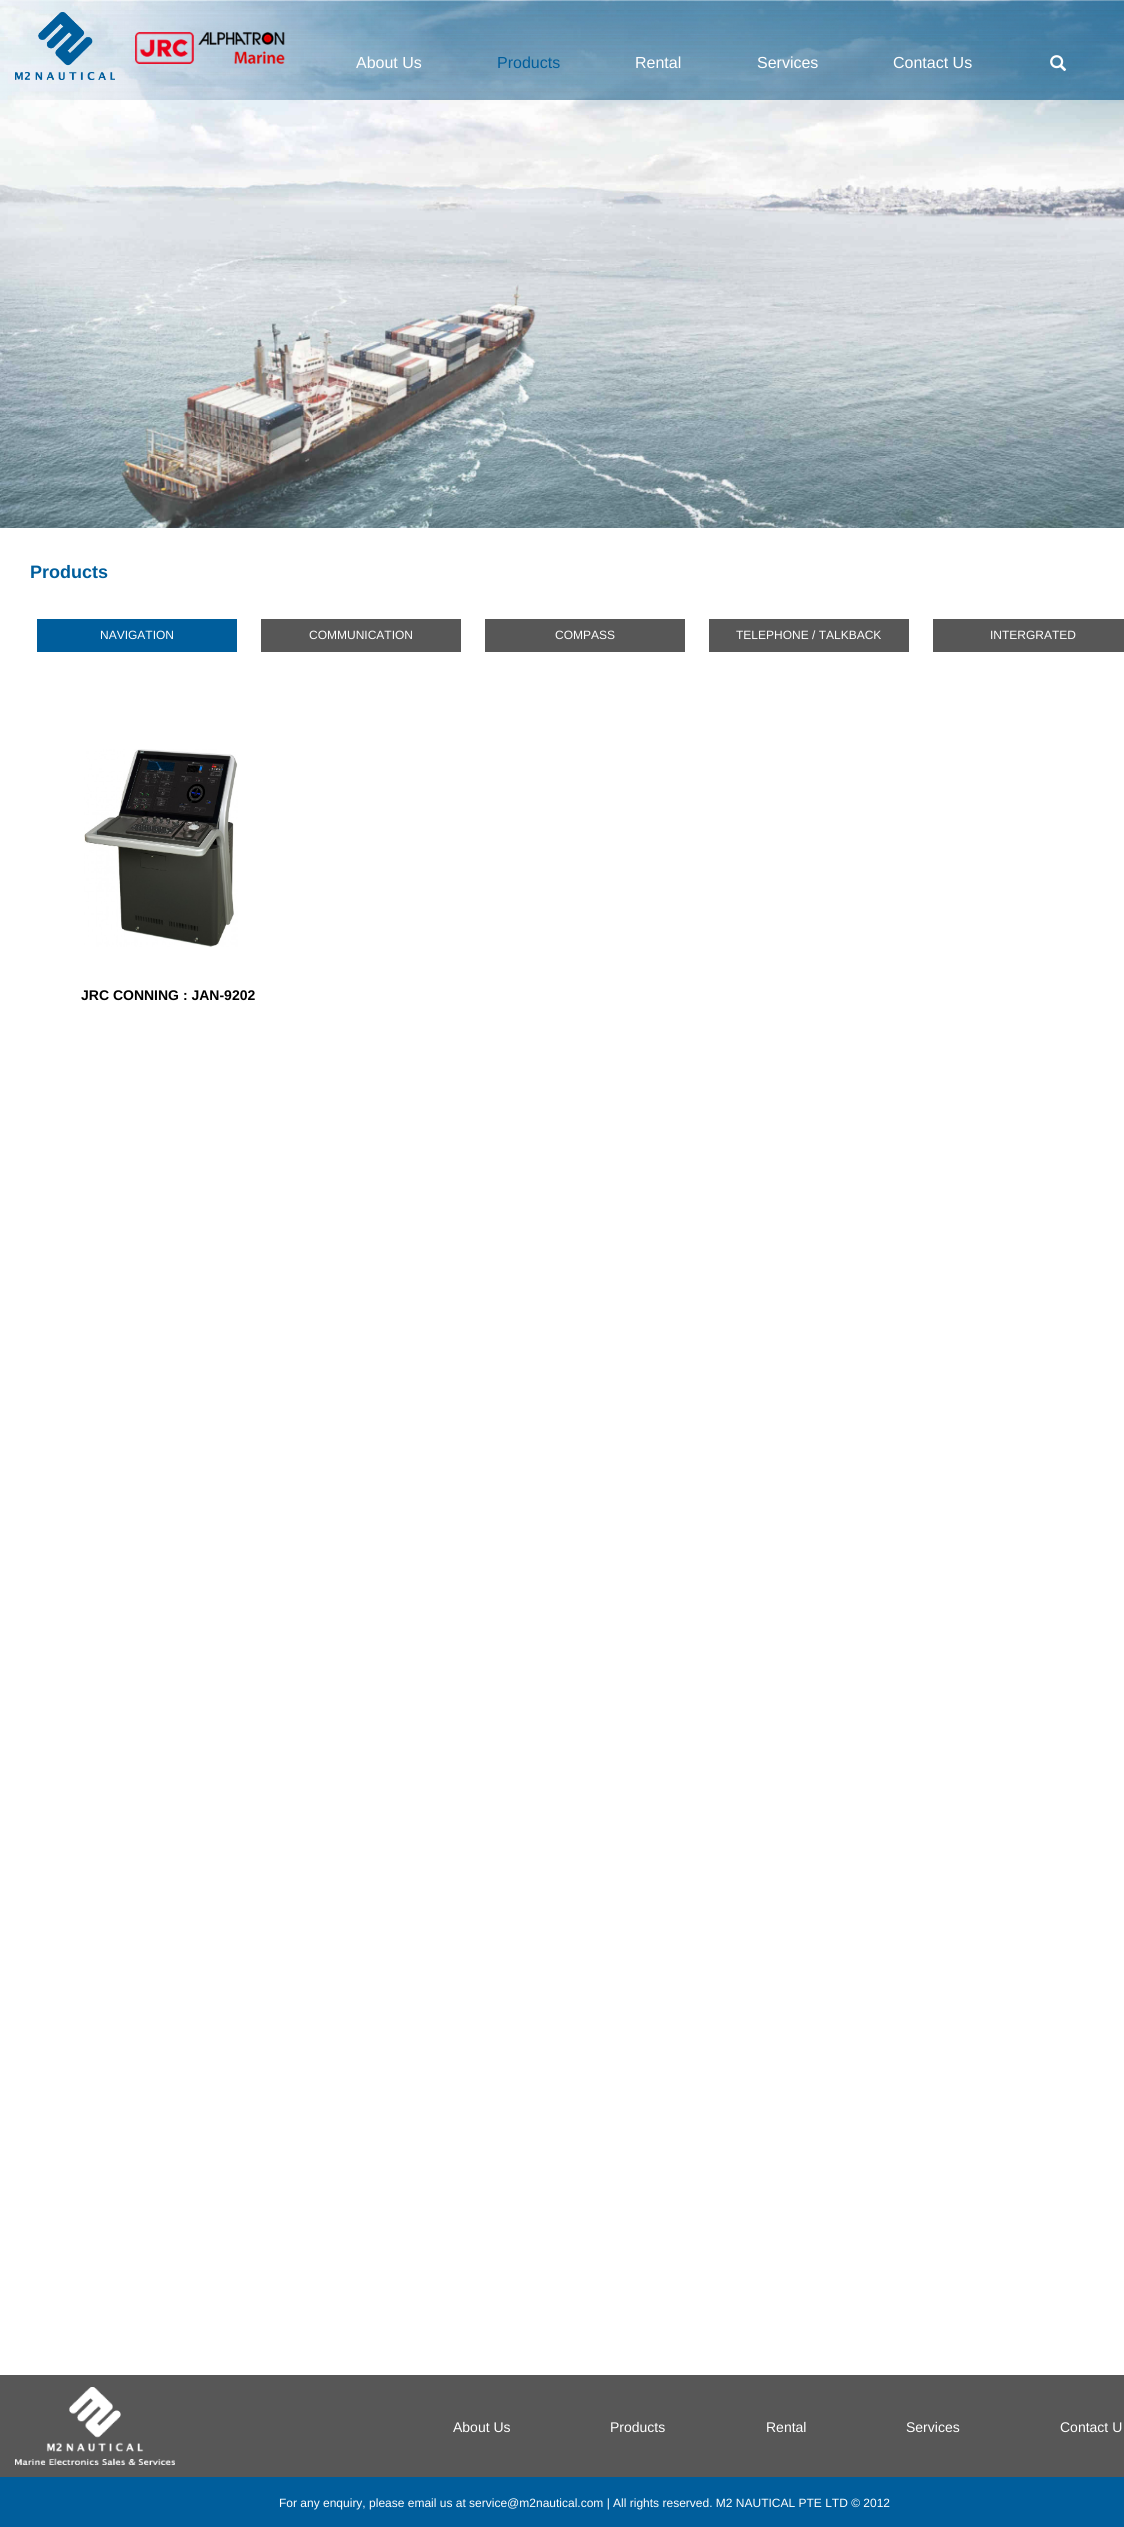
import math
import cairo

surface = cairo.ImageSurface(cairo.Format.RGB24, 1124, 2527)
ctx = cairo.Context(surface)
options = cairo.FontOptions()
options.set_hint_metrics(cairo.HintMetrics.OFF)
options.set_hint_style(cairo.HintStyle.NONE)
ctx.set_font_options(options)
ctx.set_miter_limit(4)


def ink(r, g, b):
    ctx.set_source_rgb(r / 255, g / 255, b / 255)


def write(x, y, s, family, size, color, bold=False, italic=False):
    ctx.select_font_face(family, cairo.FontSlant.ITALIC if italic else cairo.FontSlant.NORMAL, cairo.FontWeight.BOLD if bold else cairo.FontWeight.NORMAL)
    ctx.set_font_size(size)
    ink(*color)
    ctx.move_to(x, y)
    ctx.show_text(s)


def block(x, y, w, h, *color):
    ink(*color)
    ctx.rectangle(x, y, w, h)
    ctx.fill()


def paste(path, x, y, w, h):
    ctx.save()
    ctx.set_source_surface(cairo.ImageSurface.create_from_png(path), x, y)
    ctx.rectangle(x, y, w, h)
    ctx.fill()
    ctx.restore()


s1 = dict(family="Liberation Sans", size=16, color=(255, 255, 255))
s2 = dict(family="Liberation Sans", size=16, color=(0, 94, 156))
s3 = dict(family="Liberation Sans", size=18, color=(0, 94, 156), bold=True)
s4 = dict(family="Liberation Sans", size=12, color=(255, 255, 255))
s5 = dict(family="Liberation Sans", size=14, color=(0, 0, 0), bold=True)
s6 = dict(family="Liberation Sans", size=14, color=(255, 255, 255))

ink(255, 255, 255)
ctx.paint()
paste("pic1.png", 0, 0, 1124, 528)
paste("pic2.png", 0, 0, 1124, 100)
paste("pic3.png", 15, 12, 100, 68)
paste("pic4.png", 135, 32, 150, 32)
write(356, 68, "About Us", **s1)
write(497, 68, "Products", **s2)
write(635, 68, "Rental", **s1)
write(757, 68, "Services", **s1)
write(893, 68, "Contact Us", **s1)
paste("pic5.png", 1050, 55, 17, 17)
write(30, 578, "Products", **s3)
block(37, 619, 200, 33, 0, 94, 156)
write(100, 639, "NAVIGATION", **s4)
block(261, 619, 200, 33, 87, 87, 87)
write(309, 639, "COMMUNICATION", **s4)
block(485, 619, 200, 33, 87, 87, 87)
write(555, 639, "COMPASS", **s4)
block(709, 619, 200, 33, 87, 87, 87)
write(736, 639, "TELEPHONE / TALKBACK", **s4)
block(933, 619, 191, 33, 87, 87, 87)
write(990, 639, "INTERGRATED", **s4)
paste("pic6.png", 84, 749, 154, 198)
write(81, 1000, "JRC CONNING : JAN-9202", **s5)
block(0, 2375, 1124, 102, 87, 87, 87)
paste("pic7.png", 15, 2387, 160, 78)
write(453, 2432, "About Us", **s6)
write(610, 2432, "Products", **s6)
write(766, 2432, "Rental", **s6)
write(906, 2432, "Services", **s6)
write(1060, 2432, "Contact U", **s6)
block(0, 2477, 1124, 50, 0, 94, 156)
write(279, 2507, "For any enquiry, please email us at service@m2nautical.com | All rights reserved. M2 NAUTICAL PTE LTD © 2012", **s4)
surface.write_to_png("screenshot.png")
